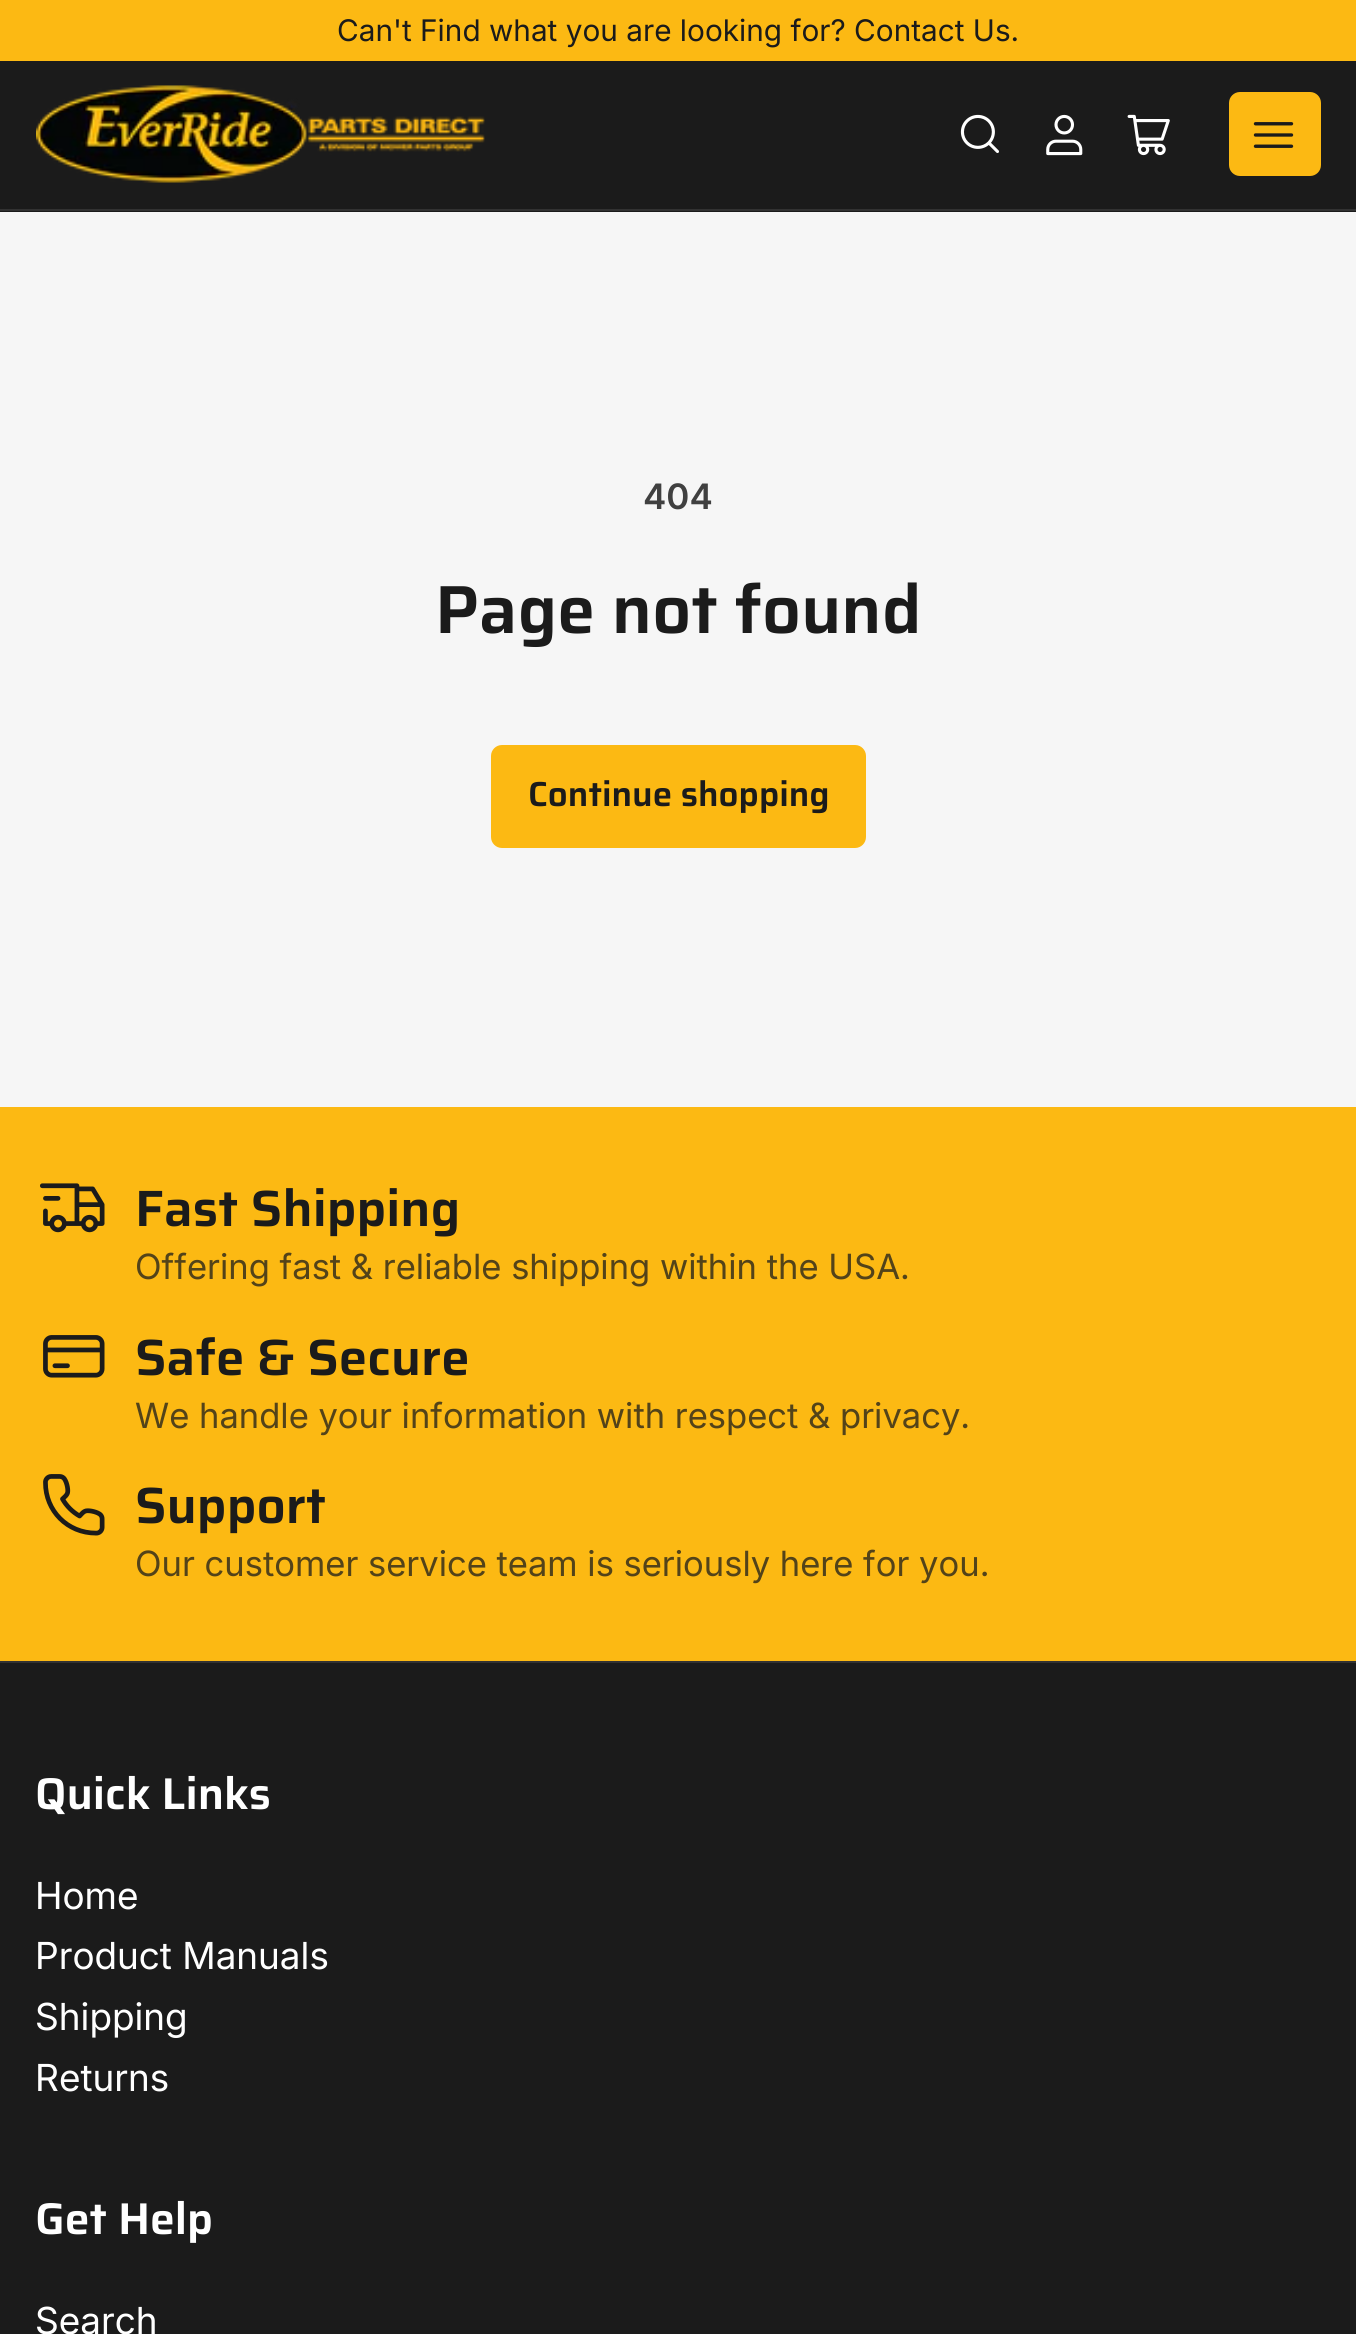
import math
import cairo

surface = cairo.ImageSurface(cairo.Format.RGB24, 1356, 2334)
ctx = cairo.Context(surface)
options = cairo.FontOptions()
options.set_hint_metrics(cairo.HintMetrics.OFF)
options.set_hint_style(cairo.HintStyle.NONE)
ctx.set_font_options(options)
ctx.set_miter_limit(4)


def ink(r, g, b):
    ctx.set_source_rgb(r / 255, g / 255, b / 255)


def write(x, y, s, family, size, color, bold=False, italic=False):
    ctx.select_font_face(family, cairo.FontSlant.ITALIC if italic else cairo.FontSlant.NORMAL, cairo.FontWeight.BOLD if bold else cairo.FontWeight.NORMAL)
    ctx.set_font_size(size)
    ink(*color)
    ctx.move_to(x, y)
    ctx.show_text(s)


def block(x, y, w, h, *color):
    ink(*color)
    ctx.rectangle(x, y, w, h)
    ctx.fill()


def round_path(x, y, w, h, r):
    ctx.new_sub_path()
    for i, (u, v) in enumerate([(x + w - r, y + h - r), (x + r, y + h - r), (x + r, y + r), (x + w - r, y + r)]):
        ctx.arc(u, v, r, i * math.pi / 2, (i + 1) * math.pi / 2)
    ctx.close_path()


def paste(path, x, y, w, h):
    ctx.save()
    ctx.set_source_surface(cairo.ImageSurface.create_from_png(path), x, y)
    ctx.rectangle(x, y, w, h)
    ctx.fill()
    ctx.restore()


s1 = dict(family="Inter", size=29.75, color=(27, 27, 27))
s2 = dict(family="Inter SemiBold", size=35, color=(64, 64, 64))
s3 = dict(family="Saira SemiBold", size=68, color=(27, 27, 27))
s4 = dict(family="Saira SemiBold", size=34.75, color=(27, 27, 27))
s5 = dict(family="Saira SemiBold", size=51, color=(27, 27, 27))
s6 = dict(family="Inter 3", size=34.75, color=(83, 67, 25))
s7 = dict(family="Saira SemiBold", size=44.5, color=(255, 255, 255))
s8 = dict(family="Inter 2", size=37.25, color=(255, 255, 255))

ink(246, 246, 246)
ctx.paint()
block(0, 0, 1356, 61, 252, 185, 19)
write(337, 41, "Can't Find what you are looking for? Contact Us.", **s1)
block(0, 61, 1356, 151, 27, 27, 27)
block(0, 209, 1356, 2, 50, 50, 50)
paste("pic1.png", 36, 85, 449, 98)
paste("pic2.png", 960, 114, 39, 39)
paste("pic3.png", 1046, 114, 37, 42)
paste("pic4.png", 1127, 114, 43, 42)
ink(252, 185, 19)
round_path(1230, 93, 90, 82, 10)
ctx.fill_preserve()
ctx.stroke()
paste("pic5.png", 1253, 122, 41, 26)
write(643, 509, "404", **s2)
write(435, 633, "Page not found", **s3)
ink(252, 185, 19)
round_path(492, 746, 373, 101, 10)
ctx.fill_preserve()
ctx.stroke()
write(528, 806, "Continue shopping", **s4)
block(0, 1107, 1356, 554, 252, 185, 19)
paste("pic6.png", 40, 1183, 65, 50)
write(135, 1226, "Fast Shipping", **s5)
write(135, 1279, "Offering fast & reliable shipping within the USA.", **s6)
paste("pic7.png", 43, 1335, 62, 43)
write(135, 1375, "Safe & Secure", **s5)
write(135, 1428, "We handle your information with respect & privacy.", **s6)
paste("pic8.png", 43, 1474, 62, 62)
write(135, 1523, "Support", **s5)
write(135, 1576, "Our customer service team is seriously here for you.", **s6)
block(0, 1663, 1356, 671, 27, 27, 27)
block(0, 1661, 1356, 2, 50, 50, 50)
write(35, 1809, "Quick Links", **s7)
write(35, 1909, "Home", **s8)
write(35, 1969, "Product Manuals", **s8)
write(35, 2030, "Shipping", **s8)
write(35, 2091, "Returns", **s8)
write(35, 2234, "Get Help", **s7)
write(35, 2334, "Search", **s8)
surface.write_to_png("screenshot.png")
